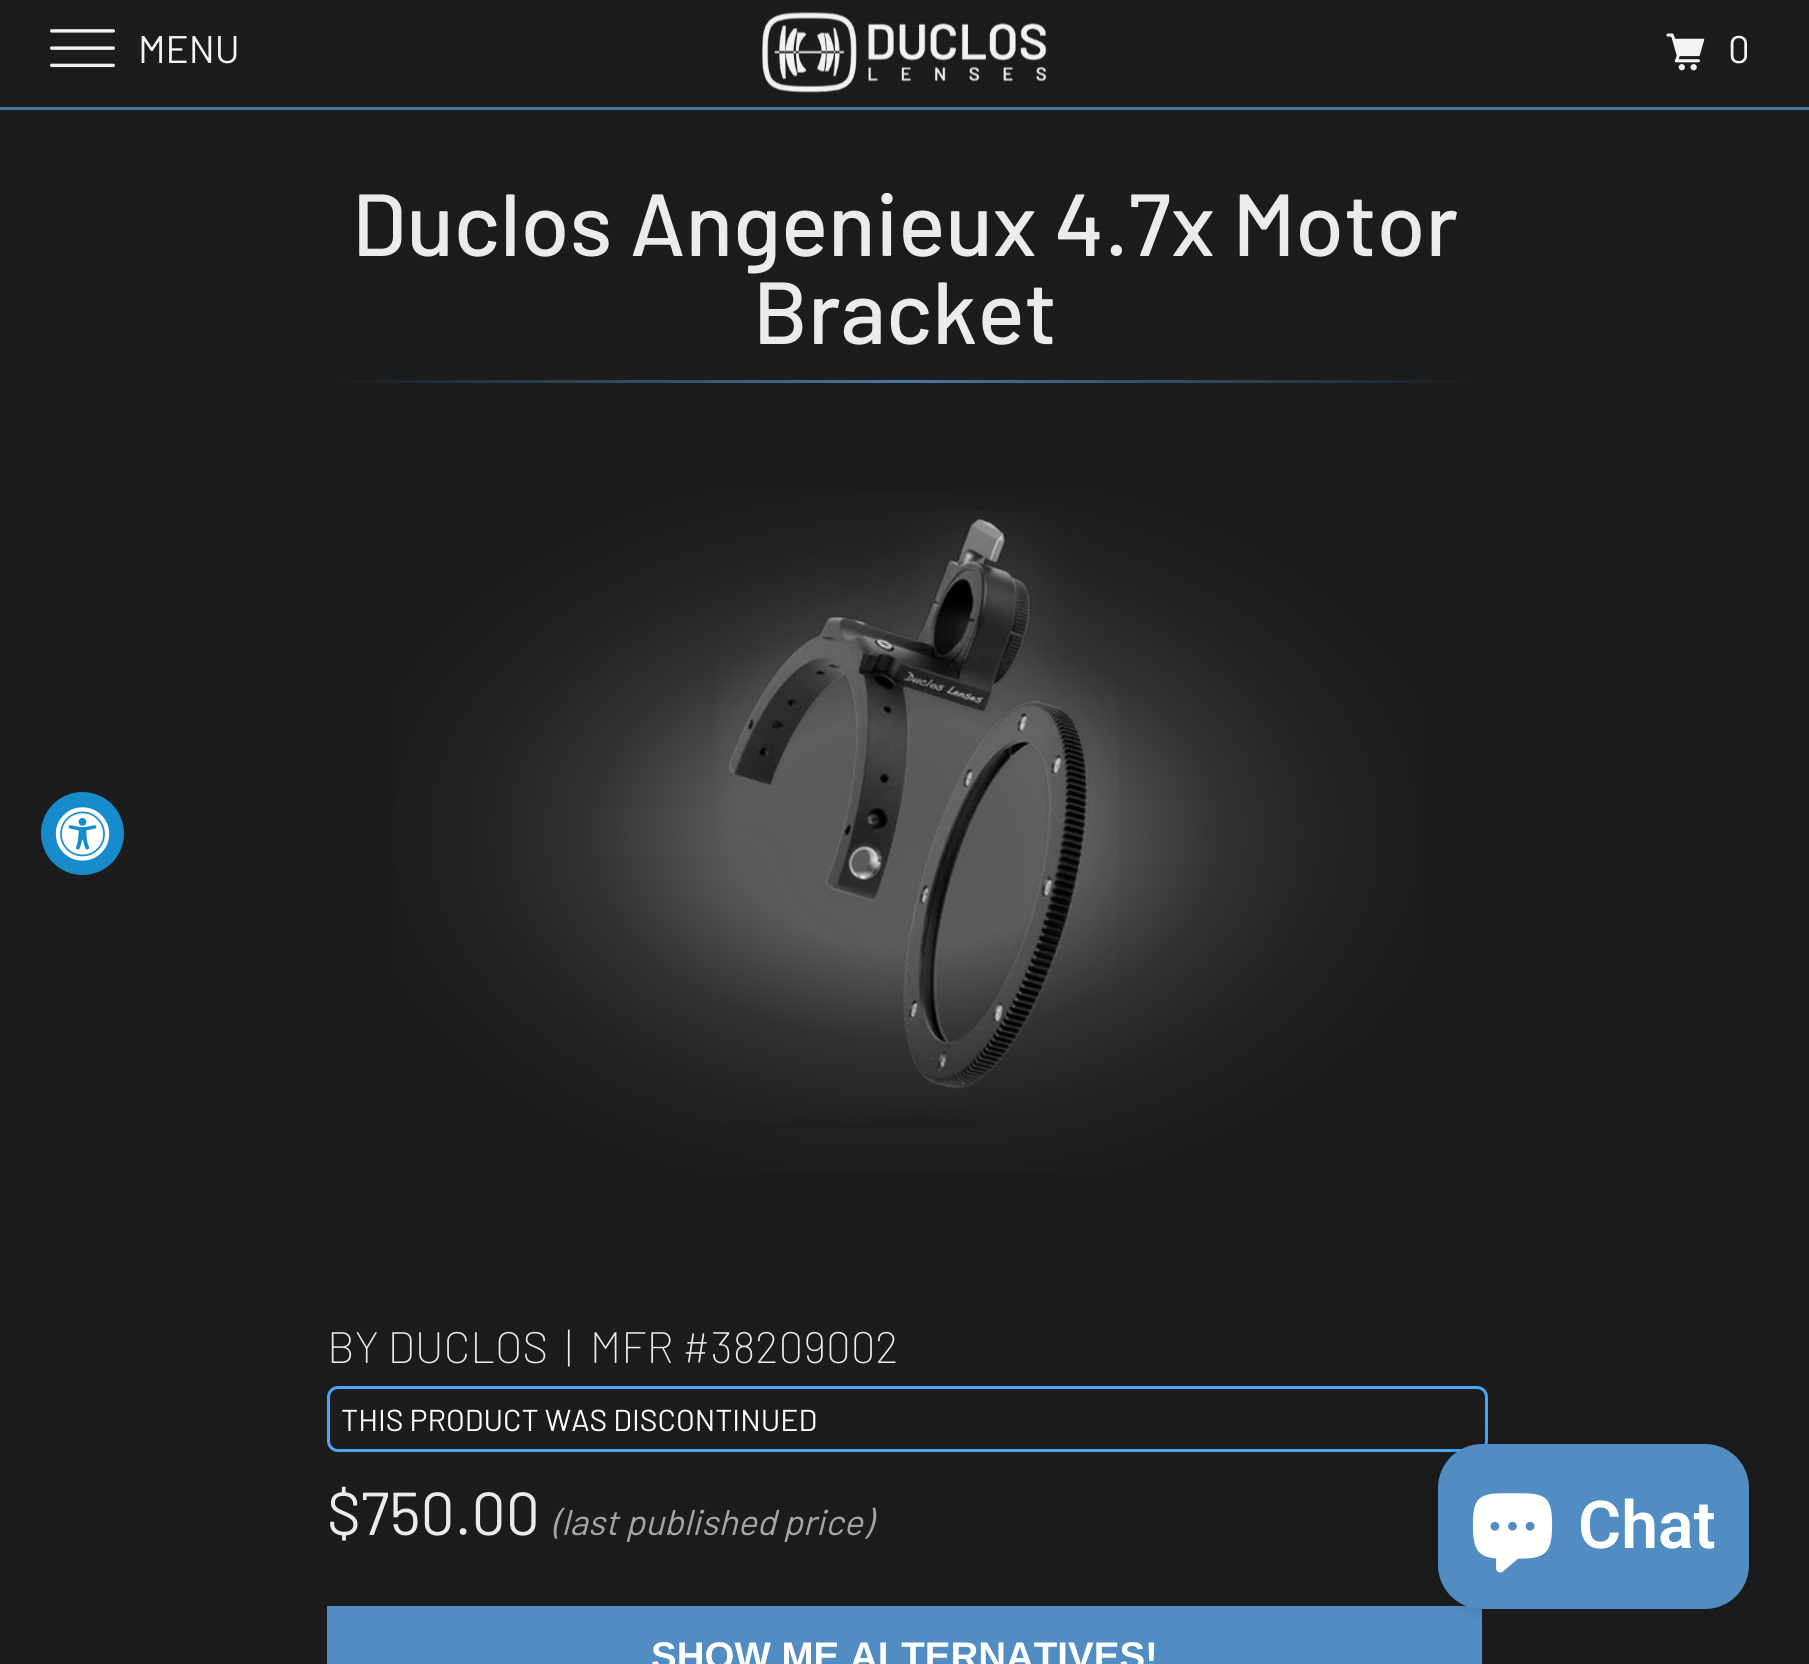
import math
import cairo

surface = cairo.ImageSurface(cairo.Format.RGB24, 1809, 1664)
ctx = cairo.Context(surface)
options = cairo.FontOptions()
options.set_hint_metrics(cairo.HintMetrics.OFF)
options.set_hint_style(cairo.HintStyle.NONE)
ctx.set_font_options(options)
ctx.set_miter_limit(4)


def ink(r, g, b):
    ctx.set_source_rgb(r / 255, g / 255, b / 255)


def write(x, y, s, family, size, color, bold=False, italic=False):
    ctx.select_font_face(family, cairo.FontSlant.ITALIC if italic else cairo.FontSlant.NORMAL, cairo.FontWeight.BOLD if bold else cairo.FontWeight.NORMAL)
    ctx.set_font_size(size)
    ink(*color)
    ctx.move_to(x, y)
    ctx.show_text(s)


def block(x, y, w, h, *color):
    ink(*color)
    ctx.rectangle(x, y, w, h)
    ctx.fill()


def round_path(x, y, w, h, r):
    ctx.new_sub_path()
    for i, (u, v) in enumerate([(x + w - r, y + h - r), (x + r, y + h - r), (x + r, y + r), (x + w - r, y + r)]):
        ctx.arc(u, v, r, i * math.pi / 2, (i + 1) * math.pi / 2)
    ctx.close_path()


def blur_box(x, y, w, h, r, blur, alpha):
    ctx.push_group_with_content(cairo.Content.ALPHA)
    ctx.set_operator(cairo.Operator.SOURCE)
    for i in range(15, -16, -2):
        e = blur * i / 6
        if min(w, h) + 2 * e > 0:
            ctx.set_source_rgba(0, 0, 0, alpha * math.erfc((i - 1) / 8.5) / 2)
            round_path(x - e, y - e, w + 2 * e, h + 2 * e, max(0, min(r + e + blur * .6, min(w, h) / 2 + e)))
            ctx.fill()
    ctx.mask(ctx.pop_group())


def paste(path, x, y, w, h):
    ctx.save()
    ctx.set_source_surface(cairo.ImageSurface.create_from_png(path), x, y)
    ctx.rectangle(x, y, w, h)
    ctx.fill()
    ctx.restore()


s1 = dict(family="Barlow", size=38.5, color=(244, 244, 244))
s2 = dict(family="Barlow Medium", size=88, color=(235, 235, 235))
s3 = dict(family="Barlow ExtraLight", size=44, color=(235, 235, 235))
s4 = dict(family="Barlow", size=30.25, color=(255, 255, 255))
s5 = dict(family="Barlow", size=60.5, color=(235, 235, 235))
s6 = dict(family="Barlow", size=35.75, color=(166, 166, 166), italic=True)
s7 = dict(family="Liberation Sans", size=38.5, color=(255, 255, 255), bold=True)
s8 = dict(family="Roboto SemiBold", size=66, color=(255, 255, 255))

ink(28, 28, 29)
ctx.paint()
block(0, 107, 1809, 3, 75, 120, 157)
paste("pic1.png", 50, 29, 65, 39)
write(138, 63, "MENU", **s1)
paste("pic2.png", 762, 12, 285, 81)
paste("pic3.png", 1666, 33, 39, 38)
write(1728, 63, "0", **s1)
ink(24, 139, 205)
ctx.new_path()
ctx.arc(82.5, 833.5, 41.5, 0, 2 * math.pi)
ctx.fill()
paste("pic4.png", 55, 807, 55, 54)
write(352, 256, "Duclos Angenieux 4.7x Motor", **s2)
write(753, 344, "Bracket", **s2)
gradient = cairo.LinearGradient(327, 381, 1482, 381)
gradient.add_color_stop_rgba(0, 0.106, 0.106, 0.11, 1)
gradient.add_color_stop_rgba(0.5, 0.278, 0.478, 0.651, 1)
gradient.add_color_stop_rgba(1, 0.106, 0.106, 0.11, 1)
ctx.set_source(gradient)
ctx.rectangle(342, 380, 1125, 3)
ctx.fill()
gradient = cairo.RadialGradient(0, 0, 0, 0, 0, 1)
gradient.set_matrix(cairo.Matrix(1 / 575, 0, 0, 1 / 382, -1 * 905 / 575, -1 * 833 / 382))
gradient.add_color_stop_rgba(0, 0.353, 0.353, 0.353, 1)
gradient.add_color_stop_rgba(0.3, 0.353, 0.353, 0.353, 1)
gradient.add_color_stop_rgba(0.55, 0.192, 0.192, 0.196, 1)
gradient.add_color_stop_rgba(0.75, 0.137, 0.137, 0.137, 1)
gradient.add_color_stop_rgba(1, 0.106, 0.106, 0.11, 1)
ctx.set_source(gradient)
ctx.rectangle(393, 494, 1024, 678)
ctx.fill()
paste("pic5.png", 717, 511, 401, 618)
write(327, 1363, "BY DUCLOS  |  MFR #38209002", **s3)
round_path(328.5, 1387.5, 1158, 63, 9.5)
ink(74, 167, 246)
ctx.set_line_width(3)
ctx.stroke()
write(341, 1431, "THIS PRODUCT WAS DISCONTINUED", **s4)
write(327, 1535, "$750.00", **s5)
write(552, 1535, "(last published price)", **s6)
block(327, 1606, 1155, 58, 81, 141, 194)
write(651, 1669, "SHOW ME ALTERNATIVES!", **s7)
ink(0, 0, 0)
blur_box(1438, 1444, 311, 165, 44, 7, 0.15)
ink(81, 141, 194)
round_path(1438, 1444, 311, 165, 44)
ctx.fill()
paste("pic6.png", 1472, 1493, 81, 80)
write(1578, 1548, "Chat", **s8)
surface.write_to_png("screenshot.png")
